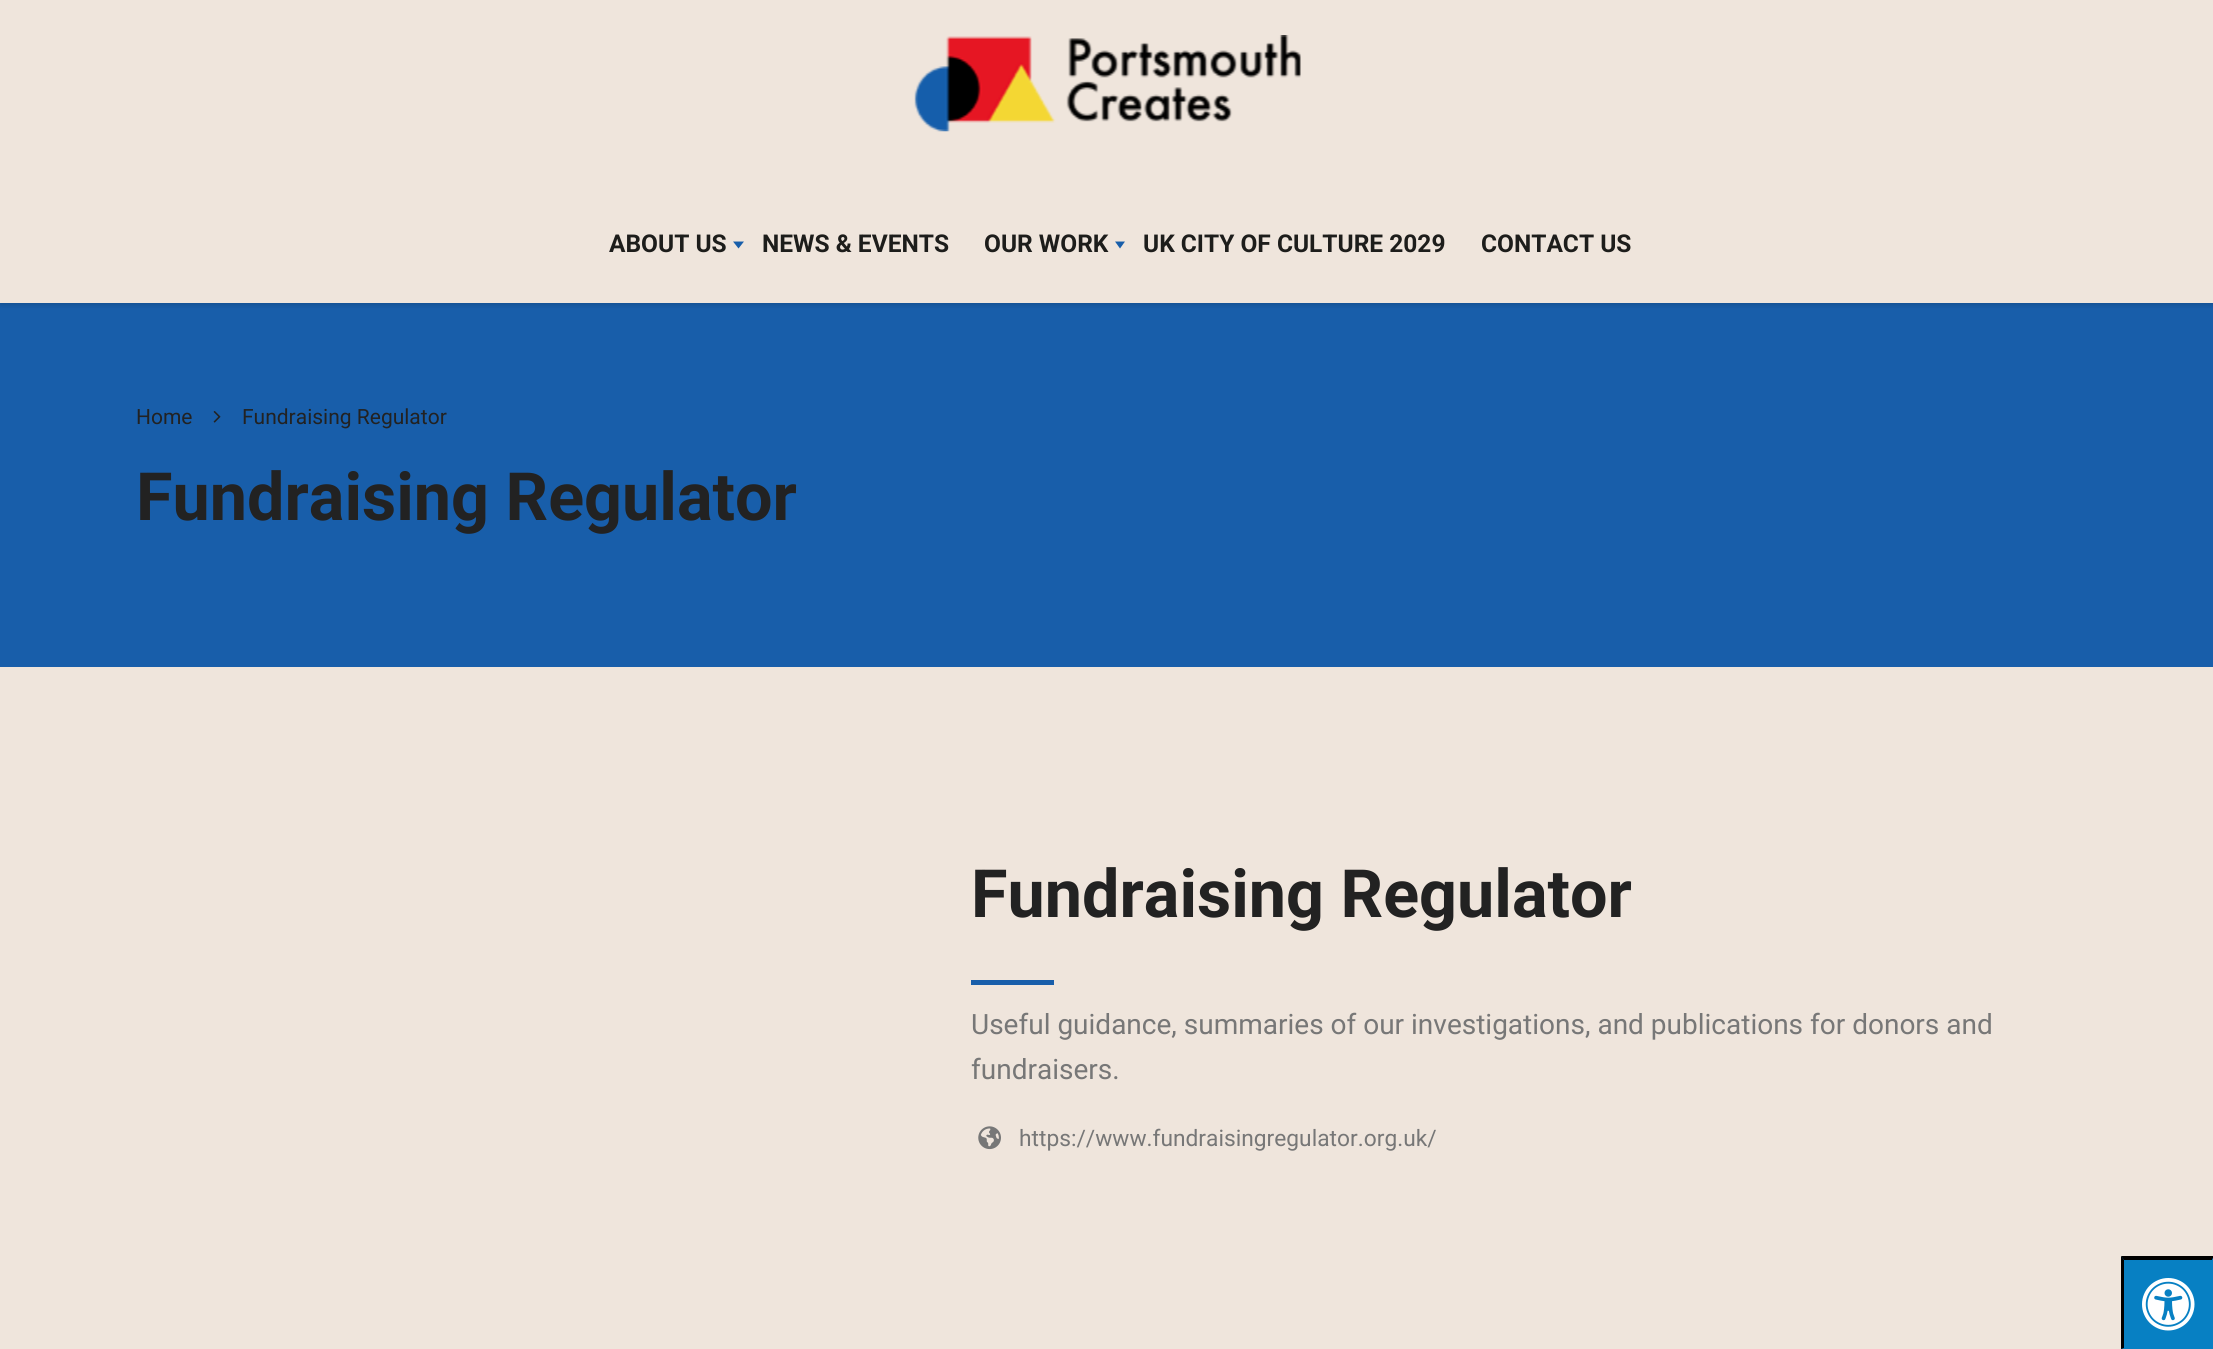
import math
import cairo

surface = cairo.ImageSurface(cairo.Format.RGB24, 2213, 1349)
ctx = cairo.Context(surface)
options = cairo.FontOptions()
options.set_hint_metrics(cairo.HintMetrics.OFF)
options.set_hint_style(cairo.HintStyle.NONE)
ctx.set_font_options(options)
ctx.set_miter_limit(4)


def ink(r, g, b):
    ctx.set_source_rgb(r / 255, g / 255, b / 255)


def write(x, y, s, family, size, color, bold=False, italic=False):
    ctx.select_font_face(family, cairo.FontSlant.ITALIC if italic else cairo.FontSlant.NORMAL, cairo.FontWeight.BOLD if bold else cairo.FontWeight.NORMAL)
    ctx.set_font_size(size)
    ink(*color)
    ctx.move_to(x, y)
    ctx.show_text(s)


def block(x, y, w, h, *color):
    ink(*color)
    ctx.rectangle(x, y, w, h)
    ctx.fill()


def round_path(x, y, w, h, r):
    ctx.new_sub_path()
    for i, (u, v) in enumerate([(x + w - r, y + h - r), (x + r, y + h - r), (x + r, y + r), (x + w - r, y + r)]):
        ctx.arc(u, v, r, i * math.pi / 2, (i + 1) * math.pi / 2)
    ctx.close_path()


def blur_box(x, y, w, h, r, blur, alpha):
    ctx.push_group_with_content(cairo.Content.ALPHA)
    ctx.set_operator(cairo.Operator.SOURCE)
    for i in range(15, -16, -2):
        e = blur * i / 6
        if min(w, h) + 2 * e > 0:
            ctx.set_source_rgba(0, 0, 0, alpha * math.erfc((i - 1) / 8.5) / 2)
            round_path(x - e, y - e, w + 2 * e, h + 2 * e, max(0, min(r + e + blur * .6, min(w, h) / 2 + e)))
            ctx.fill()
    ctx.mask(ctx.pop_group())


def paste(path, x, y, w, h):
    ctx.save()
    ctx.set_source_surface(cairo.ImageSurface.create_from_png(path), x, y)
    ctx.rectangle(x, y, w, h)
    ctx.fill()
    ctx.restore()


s1 = dict(family="Roboto", size=24.5, color=(29, 29, 27), bold=True)
s2 = dict(family="Roboto", size=21, color=(34, 34, 34))
s3 = dict(family="Roboto", size=66.5, color=(34, 34, 34), bold=True)
s4 = dict(family="Roboto", size=28, color=(119, 119, 119))
s5 = dict(family="Roboto", size=22.75, color=(119, 119, 119))

ink(239, 229, 220)
ctx.paint()
block(0, 303, 2213, 364, 24, 94, 170)
ink(0, 0, 0)
blur_box(0, 2, 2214, 303, 0, 2.5, 0.15)
block(0, 0, 2213, 303, 239, 229, 220)
paste("pic1.png", 914, 35, 387, 97)
write(609, 252, "ABOUT US", **s1)
ink(24, 94, 170)
ctx.new_path()
ctx.move_to(733, 241.5)
ctx.line_to(744, 241.5)
ctx.line_to(738.5, 248.5)
ctx.close_path()
ctx.fill()
write(762, 252, "NEWS & EVENTS", **s1)
write(984, 252, "OUR WORK", **s1)
ink(24, 94, 170)
ctx.new_path()
ctx.move_to(1115, 241.5)
ctx.line_to(1125, 241.5)
ctx.line_to(1120, 248.5)
ctx.close_path()
ctx.fill()
write(1143, 252, "UK CITY OF CULTURE 2029", **s1)
write(1481, 252, "CONTACT US", **s1)
write(136, 424, "Home", **s2)
paste("pic2.png", 213, 411, 8, 12)
write(242, 424, "Fundraising Regulator", **s2)
write(136, 520, "Fundraising Regulator", **s3)
write(971, 917, "Fundraising Regulator", **s3)
block(971, 980, 83, 5, 24, 94, 170)
write(971, 1034, "Useful guidance, summaries of our investigations, and publications for donors and", **s4)
write(971, 1079, "fundraisers.", **s4)
paste("pic3.png", 978, 1126, 23, 24)
write(1019, 1146, "https://www.fundraisingregulator.org.uk/", **s5)
block(2121, 1257, 92, 92, 7, 128, 195)
ink(0, 0, 0)
ctx.new_path()
ctx.move_to(2121, 1256)
ctx.line_to(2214, 1256)
ctx.line_to(2212, 1260)
ctx.line_to(2124, 1260)
ctx.close_path()
ctx.fill()
ink(7, 128, 195)
ctx.new_path()
ctx.move_to(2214, 1256)
ctx.line_to(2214, 1349)
ctx.line_to(2212, 1348)
ctx.line_to(2212, 1260)
ctx.close_path()
ctx.fill()
ink(0, 0, 0)
ctx.new_path()
ctx.move_to(2121, 1349)
ctx.line_to(2121, 1256)
ctx.line_to(2124, 1260)
ctx.line_to(2124, 1348)
ctx.close_path()
ctx.fill()
paste("pic4.png", 2142, 1278, 53, 53)
surface.write_to_png("screenshot.png")
